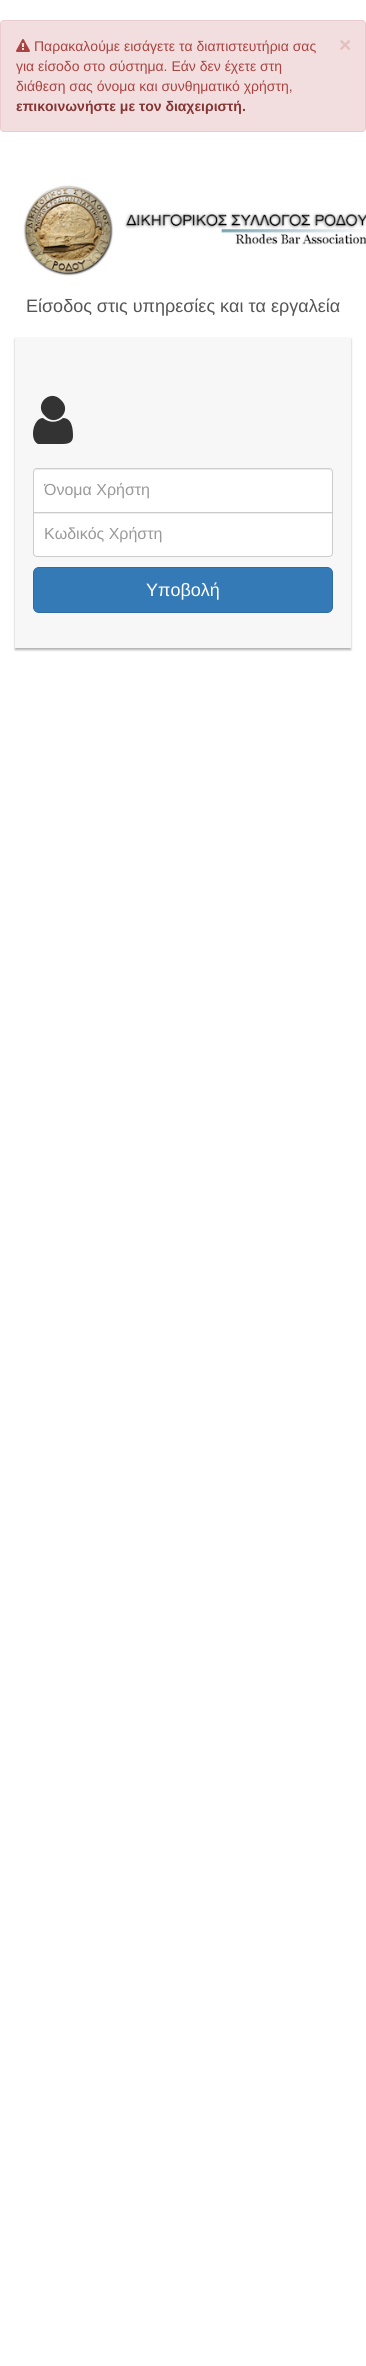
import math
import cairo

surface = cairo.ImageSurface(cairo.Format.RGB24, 366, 2366)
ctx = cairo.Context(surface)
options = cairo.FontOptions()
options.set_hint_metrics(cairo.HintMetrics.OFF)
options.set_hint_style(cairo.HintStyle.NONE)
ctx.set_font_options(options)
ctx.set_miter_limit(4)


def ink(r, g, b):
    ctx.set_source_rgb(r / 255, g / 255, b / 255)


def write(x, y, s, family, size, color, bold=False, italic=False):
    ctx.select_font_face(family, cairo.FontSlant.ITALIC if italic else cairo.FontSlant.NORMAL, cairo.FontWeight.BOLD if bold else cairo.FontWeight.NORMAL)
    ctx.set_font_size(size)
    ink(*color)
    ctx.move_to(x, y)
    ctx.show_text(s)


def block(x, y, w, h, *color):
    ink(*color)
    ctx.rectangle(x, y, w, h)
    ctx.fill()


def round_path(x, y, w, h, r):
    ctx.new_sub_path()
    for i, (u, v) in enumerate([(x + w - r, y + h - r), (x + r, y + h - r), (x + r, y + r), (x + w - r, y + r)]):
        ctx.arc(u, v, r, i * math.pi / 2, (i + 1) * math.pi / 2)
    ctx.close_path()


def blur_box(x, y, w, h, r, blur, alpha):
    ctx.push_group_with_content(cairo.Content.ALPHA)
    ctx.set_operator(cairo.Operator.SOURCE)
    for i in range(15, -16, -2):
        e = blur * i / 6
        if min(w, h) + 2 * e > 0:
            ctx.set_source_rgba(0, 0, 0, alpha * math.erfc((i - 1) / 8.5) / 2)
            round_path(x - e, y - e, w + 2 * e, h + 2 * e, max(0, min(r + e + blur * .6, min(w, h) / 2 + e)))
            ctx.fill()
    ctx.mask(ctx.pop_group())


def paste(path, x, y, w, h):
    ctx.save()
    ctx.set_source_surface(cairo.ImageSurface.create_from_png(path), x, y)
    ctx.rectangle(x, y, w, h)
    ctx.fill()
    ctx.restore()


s1 = dict(family="Liberation Sans", size=14, color=(169, 68, 66))
s2 = dict(family="Liberation Sans", size=21, color=(227, 191, 191), bold=True)
s3 = dict(family="Liberation Sans", size=14, color=(132, 53, 52), bold=True)
s4 = dict(family="Liberation Sans", size=18, color=(85, 85, 85))
s5 = dict(family="Liberation Sans", size=16, color=(153, 153, 153))
s6 = dict(family="Liberation Sans", size=18, color=(255, 255, 255))

ink(255, 255, 255)
ctx.paint()
ink(242, 222, 222)
round_path(0.5, 20.5, 365, 111, 3.5)
ctx.fill_preserve()
ink(235, 204, 209)
ctx.set_line_width(1)
ctx.stroke()
paste("pic1.png", 16, 39, 14, 13)
write(34, 51, "Παρακαλούμε εισάγετε τα διαπιστευτήρια σας", **s1)
write(339, 52, "×", **s2)
write(16, 71, "για είσοδο στο σύστημα. Εάν δεν έχετε στη", **s1)
write(16, 91, "διάθεση σας όνομα και συνθηματικό χρήστη,", **s1)
write(16, 111, "επικοινωνήστε με τον διαχειριστή.", **s3)
paste("pic2.png", 23, 185, 343, 91)
write(26, 312, "Είσοδος στις υπηρεσίες και τα εργαλεία", **s4)
ink(0, 0, 0)
blur_box(15, 339, 336, 311, 0, 1, 0.3)
block(15, 337, 336, 311, 247, 247, 247)
ink(51, 51, 51)
ctx.new_path()
ctx.move_to(73, 436)
ctx.curve_to(73, 443, 68, 444, 62, 444)
ctx.line_to(38, 444)
ctx.curve_to(29, 440, 33, 418, 43, 418)
ctx.curve_to(49, 423, 57, 423, 63, 418)
ctx.curve_to(72, 418, 73, 429, 73, 436)
ctx.close_path()
ctx.move_to(61, 400)
ctx.curve_to(73, 411, 56, 428, 45, 416)
ctx.curve_to(33, 405, 50, 388, 61, 400)
ctx.close_path()
ctx.fill()
ink(255, 255, 255)
ctx.new_path()
ctx.move_to(37, 468)
ctx.line_to(329, 468)
ctx.curve_to(331, 468, 333, 470, 333, 472)
ctx.line_to(333, 513)
ctx.line_to(33, 513)
ctx.line_to(33, 472)
ctx.curve_to(33, 470, 35, 468, 37, 468)
ctx.close_path()
ctx.fill()
ink(236, 236, 236)
ctx.new_path()
ctx.move_to(37, 470)
ctx.line_to(329, 470)
ctx.curve_to(331, 470, 332, 471, 332, 473)
ctx.line_to(331, 470)
ctx.line_to(330, 469)
ctx.line_to(37, 469)
ctx.curve_to(35, 469, 34, 471, 34, 473)
ctx.curve_to(34, 471, 35, 470, 37, 470)
ctx.close_path()
ctx.fill()
ctx.new_path()
ctx.move_to(37, 468.5)
ctx.line_to(329, 468.5)
ctx.curve_to(331, 468.5, 332.5, 470, 332.5, 472)
ctx.line_to(332.5, 512.5)
ctx.line_to(33.5, 512.5)
ctx.line_to(33.5, 472)
ctx.curve_to(33.5, 470, 35, 468.5, 37, 468.5)
ctx.close_path()
ink(204, 204, 204)
ctx.stroke()
ctx.save()
ctx.rectangle(44, 481, 278, 18)
ctx.clip()
write(44, 495, "Όνομα Χρήστη", **s5)
ctx.restore()
ink(255, 255, 255)
ctx.new_path()
ctx.move_to(33, 512)
ctx.line_to(333, 512)
ctx.line_to(333, 553)
ctx.curve_to(333, 555, 331, 557, 329, 557)
ctx.line_to(37, 557)
ctx.curve_to(35, 557, 33, 555, 33, 553)
ctx.close_path()
ctx.fill()
block(34, 513, 298, 1, 236, 236, 236)
ctx.new_path()
ctx.move_to(33.5, 512.5)
ctx.line_to(332.5, 512.5)
ctx.line_to(332.5, 553)
ctx.curve_to(332.5, 555, 331, 556.5, 329, 556.5)
ctx.line_to(37, 556.5)
ctx.curve_to(35, 556.5, 33.5, 555, 33.5, 553)
ctx.close_path()
ink(204, 204, 204)
ctx.stroke()
write(44, 539, "Κωδικός Χρήστη", **s5)
ink(51, 122, 183)
round_path(33.5, 567.5, 299, 45, 5.5)
ctx.fill_preserve()
ink(46, 109, 164)
ctx.stroke()
write(146, 596, "Υποβολή", **s6)
surface.write_to_png("screenshot.png")
